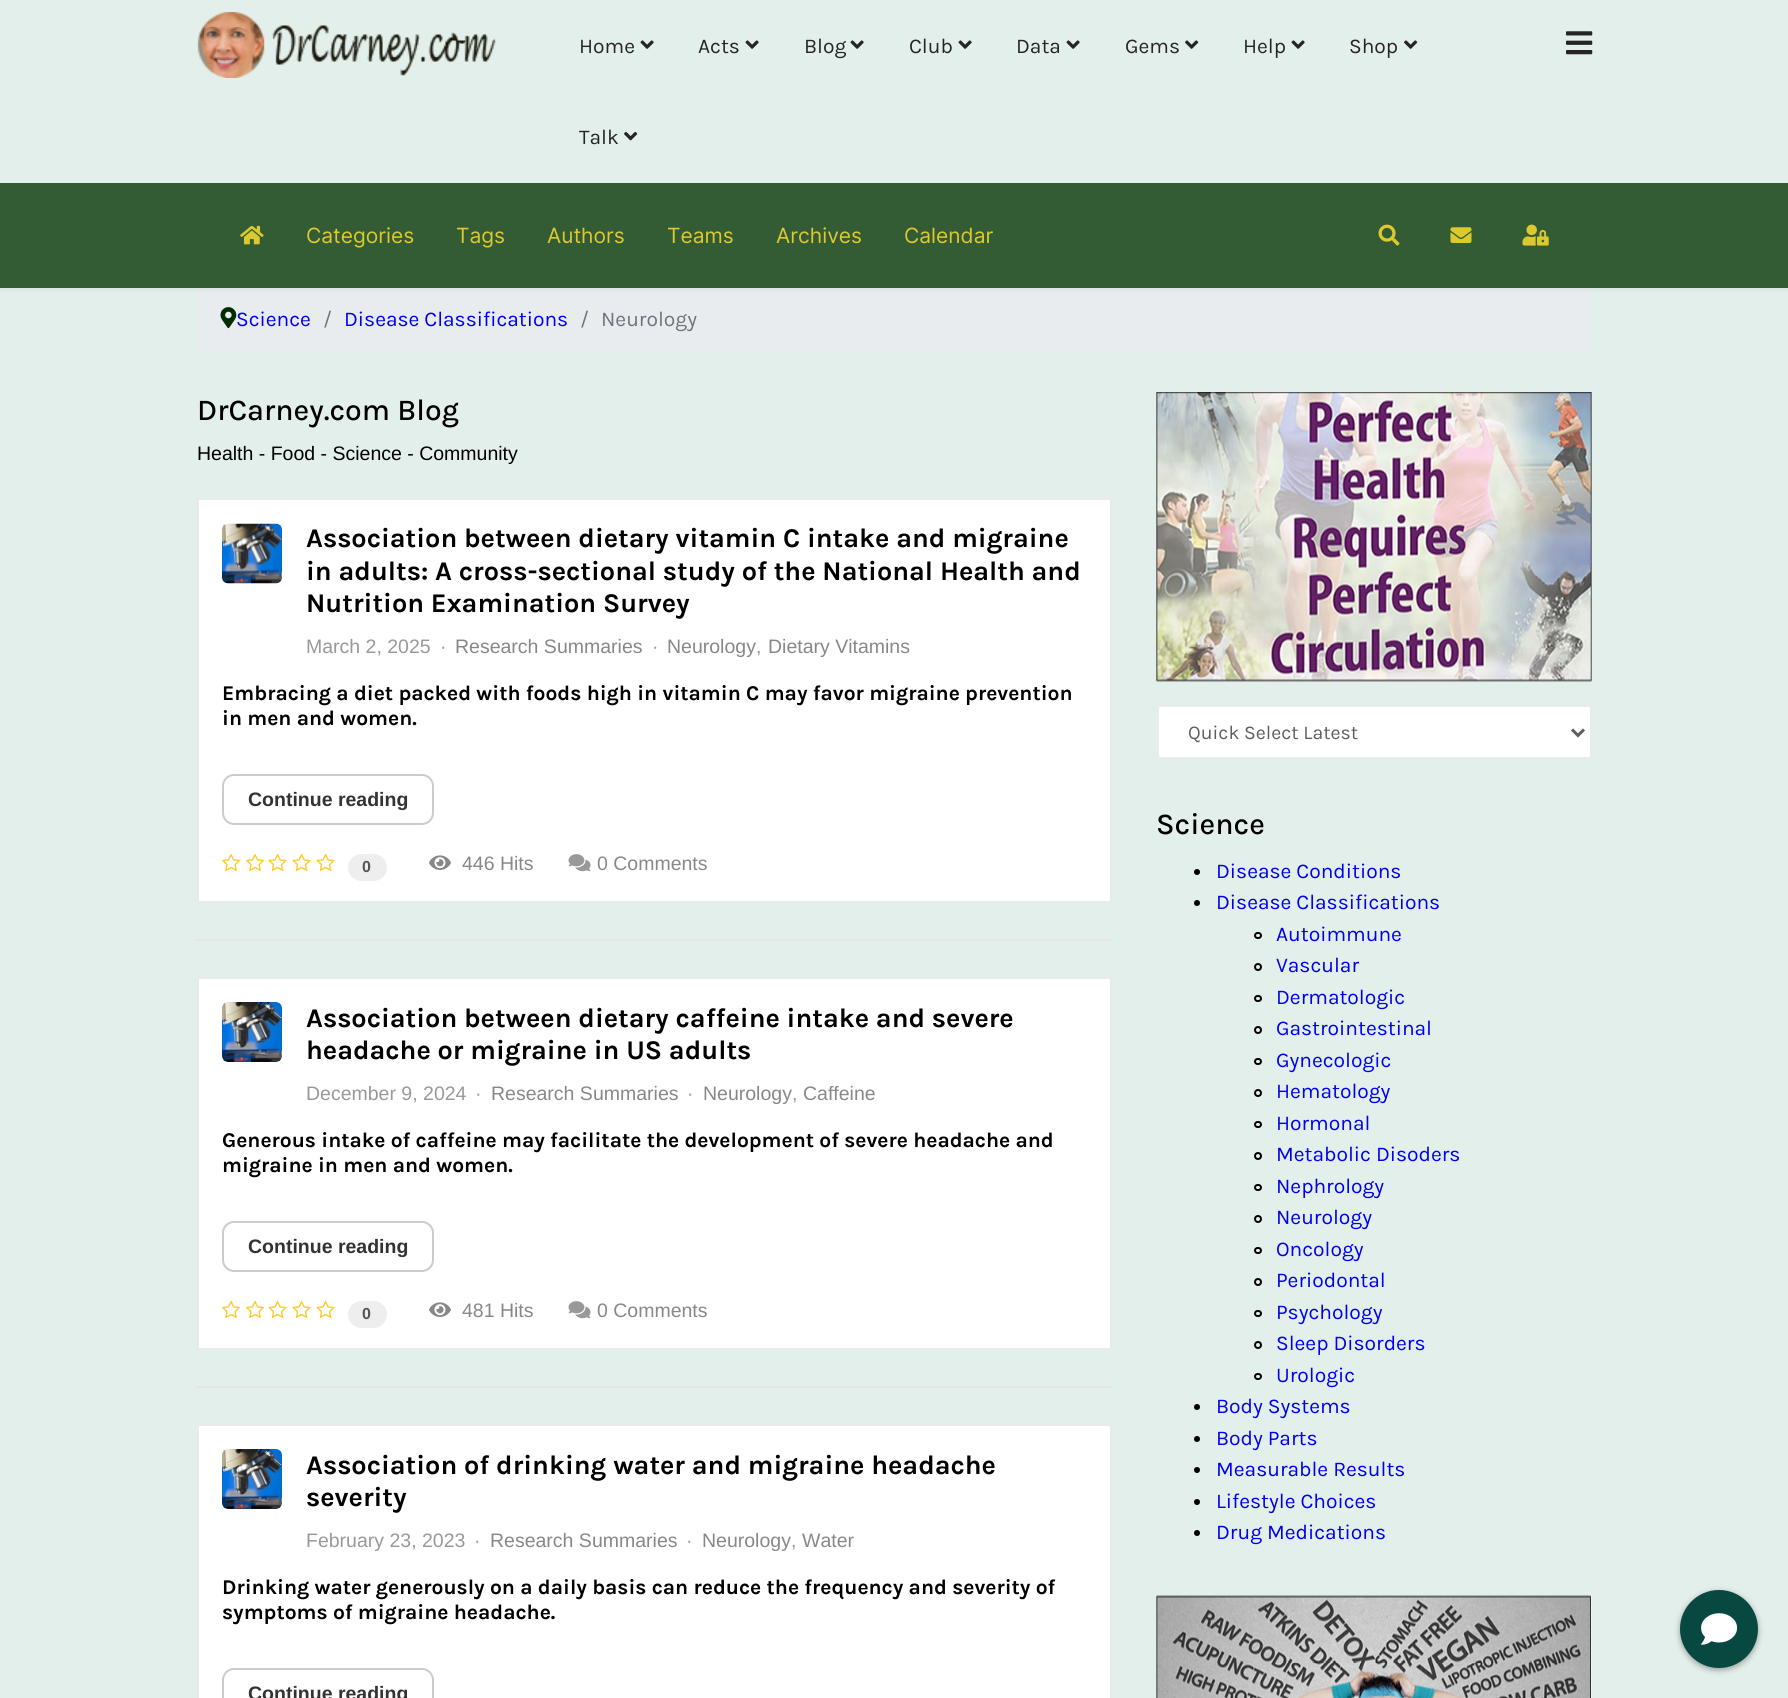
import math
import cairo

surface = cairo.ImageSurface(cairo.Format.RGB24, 1788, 1698)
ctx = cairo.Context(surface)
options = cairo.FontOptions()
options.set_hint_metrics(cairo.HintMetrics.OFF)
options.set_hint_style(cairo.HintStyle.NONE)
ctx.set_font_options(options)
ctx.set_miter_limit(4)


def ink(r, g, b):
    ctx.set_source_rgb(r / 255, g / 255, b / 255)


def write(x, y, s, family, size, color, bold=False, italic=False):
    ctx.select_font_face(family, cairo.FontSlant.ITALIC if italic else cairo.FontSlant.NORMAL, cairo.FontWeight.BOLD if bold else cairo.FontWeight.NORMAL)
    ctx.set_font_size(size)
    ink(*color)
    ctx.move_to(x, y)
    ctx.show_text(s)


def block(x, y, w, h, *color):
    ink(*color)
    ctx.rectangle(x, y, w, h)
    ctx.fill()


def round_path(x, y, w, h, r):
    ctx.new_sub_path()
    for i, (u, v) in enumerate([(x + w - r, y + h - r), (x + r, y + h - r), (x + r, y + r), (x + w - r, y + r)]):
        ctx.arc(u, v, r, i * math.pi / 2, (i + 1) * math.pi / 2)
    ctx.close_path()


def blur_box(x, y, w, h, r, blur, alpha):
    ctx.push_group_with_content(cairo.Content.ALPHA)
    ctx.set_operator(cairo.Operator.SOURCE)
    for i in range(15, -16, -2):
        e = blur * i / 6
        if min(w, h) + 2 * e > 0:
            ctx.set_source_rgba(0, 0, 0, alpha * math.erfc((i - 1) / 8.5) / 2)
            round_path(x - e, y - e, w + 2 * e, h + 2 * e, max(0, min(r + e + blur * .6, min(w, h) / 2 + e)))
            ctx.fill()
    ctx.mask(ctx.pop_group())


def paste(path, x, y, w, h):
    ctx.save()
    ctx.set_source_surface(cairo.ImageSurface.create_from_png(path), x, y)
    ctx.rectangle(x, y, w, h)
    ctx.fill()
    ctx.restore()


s1 = dict(family="Karla", size=21, color=(37, 37, 37))
s2 = dict(family="Inter", size=21, color=(220, 200, 47))
s3 = dict(family="Karla", size=21, color=(0, 0, 238))
s4 = dict(family="Karla", size=21, color=(108, 117, 125))
s5 = dict(family="Karla Medium", size=30, color=(0, 0, 0))
s6 = dict(family="Liberation Sans", size=19.5, color=(0, 0, 0))
s7 = dict(family="Karla", size=27, color=(0, 0, 0), bold=True)
s8 = dict(family="Liberation Sans", size=19.5, color=(153, 153, 153))
s9 = dict(family="Liberation Sans", size=19.5, color=(136, 136, 136))
s10 = dict(family="Karla", size=21, color=(0, 0, 0), bold=True)
s11 = dict(family="Liberation Sans", size=19.5, color=(51, 51, 51), bold=True)
s12 = dict(family="Liberation Sans", size=16, color=(85, 85, 85), bold=True)
s13 = dict(family="Karla", size=19.5, color=(94, 94, 94))

ink(227, 239, 234)
ctx.paint()
ink(233, 236, 239)
round_path(197, 285, 1395, 68, 6)
ctx.fill()
ink(0, 0, 0)
blur_box(0, 0, 1788, 288, 0, 3, 0.1)
block(0, 0, 1788, 183, 227, 239, 234)
paste("pic1.png", 197, 12, 299, 66)
write(579, 53, "Home", **s1)
paste("pic2.png", 640, 40, 14, 9)
write(698, 53, "Acts", **s1)
paste("pic2.png", 745, 40, 14, 9)
write(804, 53, "Blog", **s1)
paste("pic2.png", 850, 40, 14, 9)
write(909, 53, "Club", **s1)
paste("pic2.png", 958, 40, 14, 9)
write(1016, 53, "Data", **s1)
paste("pic2.png", 1066, 40, 14, 9)
write(1125, 53, "Gems", **s1)
paste("pic3.png", 1185, 40, 14, 9)
write(1243, 53, "Help", **s1)
paste("pic2.png", 1291, 40, 14, 9)
write(1349, 53, "Shop", **s1)
paste("pic3.png", 1404, 40, 14, 9)
write(579, 144, "Talk", **s1)
paste("pic4.png", 624, 131, 14, 10)
paste("pic5.png", 1566, 31, 27, 24)
block(0, 183, 1788, 105, 52, 92, 52)
paste("pic6.png", 240, 225, 24, 20)
write(306, 243, "Categories", **s2)
write(456, 243, "Tags", **s2)
write(547, 243, "Authors", **s2)
write(667, 243, "Teams", **s2)
write(776, 243, "Archives", **s2)
write(904, 243, "Calendar", **s2)
paste("pic7.png", 1378, 224, 22, 22)
paste("pic8.png", 1450, 227, 22, 16)
paste("pic9.png", 1522, 224, 27, 22)
paste("pic10.png", 220, 307, 17, 22)
write(236, 326, "Science", **s3)
write(323, 326, "/", **s4)
write(344, 326, "Disease Classifications", **s3)
write(580, 326, "/", **s4)
write(601, 326, "Neurology", **s4)
write(197, 420, "DrCarney.com Blog", **s5)
write(197, 460, "Health - Food - Science - Community", **s6)
ink(255, 255, 255)
ctx.rectangle(198, 499, 913, 403)
ctx.fill_preserve()
ink(234, 233, 237)
ctx.stroke()
paste("pic11.png", 222, 523, 60, 61)
write(306, 547, "Association between dietary vitamin C intake and migraine", **s7)
write(306, 580, "in adults: A cross-sectional study of the National Health and", **s7)
write(306, 612, "Nutrition Examination Survey", **s7)
write(306, 653, "March 2, 2025", **s8)
write(440, 653, "·", **s8)
write(455, 653, "Research Summaries", **s9)
write(652, 653, "·", **s8)
write(667, 653, "Neurology", **s9)
write(756, 653, ",", **s8)
write(768, 653, "Dietary Vitamins", **s9)
write(222, 700, "Embracing a diet packed with foods high in vitamin C may favor migraine prevention", **s10)
write(222, 725, "in men and women.", **s10)
round_path(223, 775, 210, 49, 11)
ink(204, 204, 204)
ctx.stroke()
write(248, 806, "Continue reading", **s11)
paste("pic12.png", 222, 853, 19, 18)
paste("pic12.png", 246, 853, 19, 18)
paste("pic13.png", 268, 853, 19, 18)
paste("pic13.png", 292, 853, 19, 18)
paste("pic13.png", 316, 853, 19, 18)
ink(238, 238, 238)
round_path(348, 854, 39, 27, 13.5)
ctx.fill()
write(362, 872, "0", **s12)
paste("pic14.png", 429, 855, 22, 15)
write(462, 870, "446 Hits", **s9)
paste("pic15.png", 568, 854, 23, 18)
write(597, 870, "0 Comments", **s9)
block(197, 939, 915, 2, 229, 229, 229)
ink(255, 255, 255)
ctx.rectangle(198, 978, 913, 371)
ctx.fill_preserve()
ink(234, 233, 237)
ctx.stroke()
paste("pic16.png", 222, 1002, 60, 60)
write(306, 1027, "Association between dietary caffeine intake and severe", **s7)
write(306, 1059, "headache or migraine in US adults", **s7)
write(306, 1100, "December 9, 2024", **s8)
write(475, 1100, "·", **s8)
write(491, 1100, "Research Summaries", **s9)
write(687, 1100, "·", **s8)
write(703, 1100, "Neurology", **s9)
write(792, 1100, ",", **s8)
write(803, 1100, "Caffeine", **s9)
write(222, 1147, "Generous intake of caffeine may facilitate the development of severe headache and", **s10)
write(222, 1172, "migraine in men and women.", **s10)
round_path(223, 1222, 210, 49, 11)
ink(204, 204, 204)
ctx.stroke()
write(248, 1253, "Continue reading", **s11)
paste("pic12.png", 222, 1300, 19, 18)
paste("pic12.png", 246, 1300, 19, 18)
paste("pic13.png", 268, 1300, 19, 18)
paste("pic13.png", 292, 1300, 19, 18)
paste("pic13.png", 316, 1300, 19, 18)
ink(238, 238, 238)
round_path(348, 1301, 39, 27, 13.5)
ctx.fill()
write(362, 1319, "0", **s12)
paste("pic14.png", 429, 1302, 22, 15)
write(462, 1317, "481 Hits", **s9)
paste("pic15.png", 568, 1301, 23, 18)
write(597, 1317, "0 Comments", **s9)
block(197, 1386, 915, 2, 229, 229, 229)
ink(255, 255, 255)
ctx.rectangle(198, 1425, 913, 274)
ctx.fill_preserve()
ink(234, 233, 237)
ctx.stroke()
paste("pic16.png", 222, 1449, 60, 60)
write(306, 1474, "Association of drinking water and migraine headache", **s7)
write(306, 1506, "severity", **s7)
write(306, 1547, "February 23, 2023", **s8)
write(474, 1547, "·", **s8)
write(490, 1547, "Research Summaries", **s9)
write(686, 1547, "·", **s8)
write(702, 1547, "Neurology", **s9)
write(791, 1547, ",", **s8)
write(802, 1547, "Water", **s9)
write(222, 1594, "Drinking water generously on a daily basis can reduce the frequency and severity of", **s10)
write(222, 1619, "symptoms of migraine headache.", **s10)
round_path(223, 1669, 210, 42, 11)
ink(204, 204, 204)
ctx.stroke()
write(248, 1700, "Continue reading", **s11)
paste("pic17.png", 1156, 392, 436, 290)
ink(255, 255, 255)
round_path(1158, 706, 433, 52, 2)
ctx.fill_preserve()
ink(235, 235, 238)
ctx.stroke()
ctx.new_path()
ctx.move_to(1572, 729.5)
ctx.line_to(1578, 735.5)
ctx.line_to(1584, 729.5)
ink(94, 94, 94)
ctx.set_line_width(3)
ctx.stroke()
write(1188, 739, "Quick Select Latest", **s13)
write(1156, 834, "Science", **s5)
ctx.new_path()
ctx.arc(1197, 872, 3, 0, 2 * math.pi)
ctx.fill()
write(1216, 878, "Disease Conditions", **s3)
ink(0, 0, 0)
ctx.new_path()
ctx.arc(1197, 903, 3, 0, 2 * math.pi)
ctx.fill()
write(1216, 909, "Disease Classifications", **s3)
round_path(1255, 933, 6, 5, 2.5)
ink(0, 0, 0)
ctx.set_line_width(2)
ctx.stroke()
write(1276, 941, "Autoimmune", **s3)
ctx.new_path()
ctx.arc(1258, 967, 3, 0, 2 * math.pi)
ink(0, 0, 0)
ctx.stroke()
write(1276, 972, "Vascular", **s3)
round_path(1255, 996, 6, 5, 2.5)
ink(0, 0, 0)
ctx.stroke()
write(1276, 1004, "Dermatologic", **s3)
ctx.new_path()
ctx.arc(1258, 1030, 3, 0, 2 * math.pi)
ink(0, 0, 0)
ctx.stroke()
write(1276, 1035, "Gastrointestinal", **s3)
round_path(1255, 1059, 6, 5, 2.5)
ink(0, 0, 0)
ctx.stroke()
write(1276, 1067, "Gynecologic", **s3)
ctx.new_path()
ctx.arc(1258, 1093, 3, 0, 2 * math.pi)
ink(0, 0, 0)
ctx.stroke()
write(1276, 1098, "Hematology", **s3)
round_path(1255, 1122, 6, 5, 2.5)
ink(0, 0, 0)
ctx.stroke()
write(1276, 1130, "Hormonal", **s3)
ctx.new_path()
ctx.arc(1258, 1156, 3, 0, 2 * math.pi)
ink(0, 0, 0)
ctx.stroke()
write(1276, 1161, "Metabolic Disoders", **s3)
round_path(1255, 1185, 6, 5, 2.5)
ink(0, 0, 0)
ctx.stroke()
write(1276, 1193, "Nephrology", **s3)
ctx.new_path()
ctx.arc(1258, 1219, 3, 0, 2 * math.pi)
ink(0, 0, 0)
ctx.stroke()
write(1276, 1224, "Neurology", **s3)
round_path(1255, 1248, 6, 5, 2.5)
ink(0, 0, 0)
ctx.stroke()
write(1276, 1256, "Oncology", **s3)
ctx.new_path()
ctx.arc(1258, 1282, 3, 0, 2 * math.pi)
ink(0, 0, 0)
ctx.stroke()
write(1276, 1287, "Periodontal", **s3)
round_path(1255, 1311, 6, 5, 2.5)
ink(0, 0, 0)
ctx.stroke()
write(1276, 1319, "Psychology", **s3)
ctx.new_path()
ctx.arc(1258, 1345, 3, 0, 2 * math.pi)
ink(0, 0, 0)
ctx.stroke()
write(1276, 1350, "Sleep Disorders", **s3)
round_path(1255, 1374, 6, 5, 2.5)
ink(0, 0, 0)
ctx.stroke()
write(1276, 1382, "Urologic", **s3)
ink(0, 0, 0)
ctx.new_path()
ctx.arc(1197, 1407, 3, 0, 2 * math.pi)
ctx.fill()
write(1216, 1413, "Body Systems", **s3)
ink(0, 0, 0)
ctx.new_path()
ctx.arc(1197, 1439, 3, 0, 2 * math.pi)
ctx.fill()
write(1216, 1445, "Body Parts", **s3)
ink(0, 0, 0)
ctx.new_path()
ctx.arc(1197, 1470, 3, 0, 2 * math.pi)
ctx.fill()
write(1216, 1476, "Measurable Results", **s3)
ink(0, 0, 0)
ctx.new_path()
ctx.arc(1197, 1502, 3, 0, 2 * math.pi)
ctx.fill()
write(1216, 1508, "Lifestyle Choices", **s3)
ink(0, 0, 0)
ctx.new_path()
ctx.arc(1197, 1533, 3, 0, 2 * math.pi)
ctx.fill()
write(1216, 1539, "Drug Medications", **s3)
paste("pic18.png", 1156, 1595, 436, 103)
ink(0, 0, 0)
blur_box(1680, 1592, 78, 78, 39, 3, 0.35)
ink(7, 72, 64)
ctx.arc(1719, 1629, 39, 0, 2 * math.pi)
ctx.fill()
paste("pic19.png", 1701, 1613, 37, 32)
surface.write_to_png("screenshot.png")
